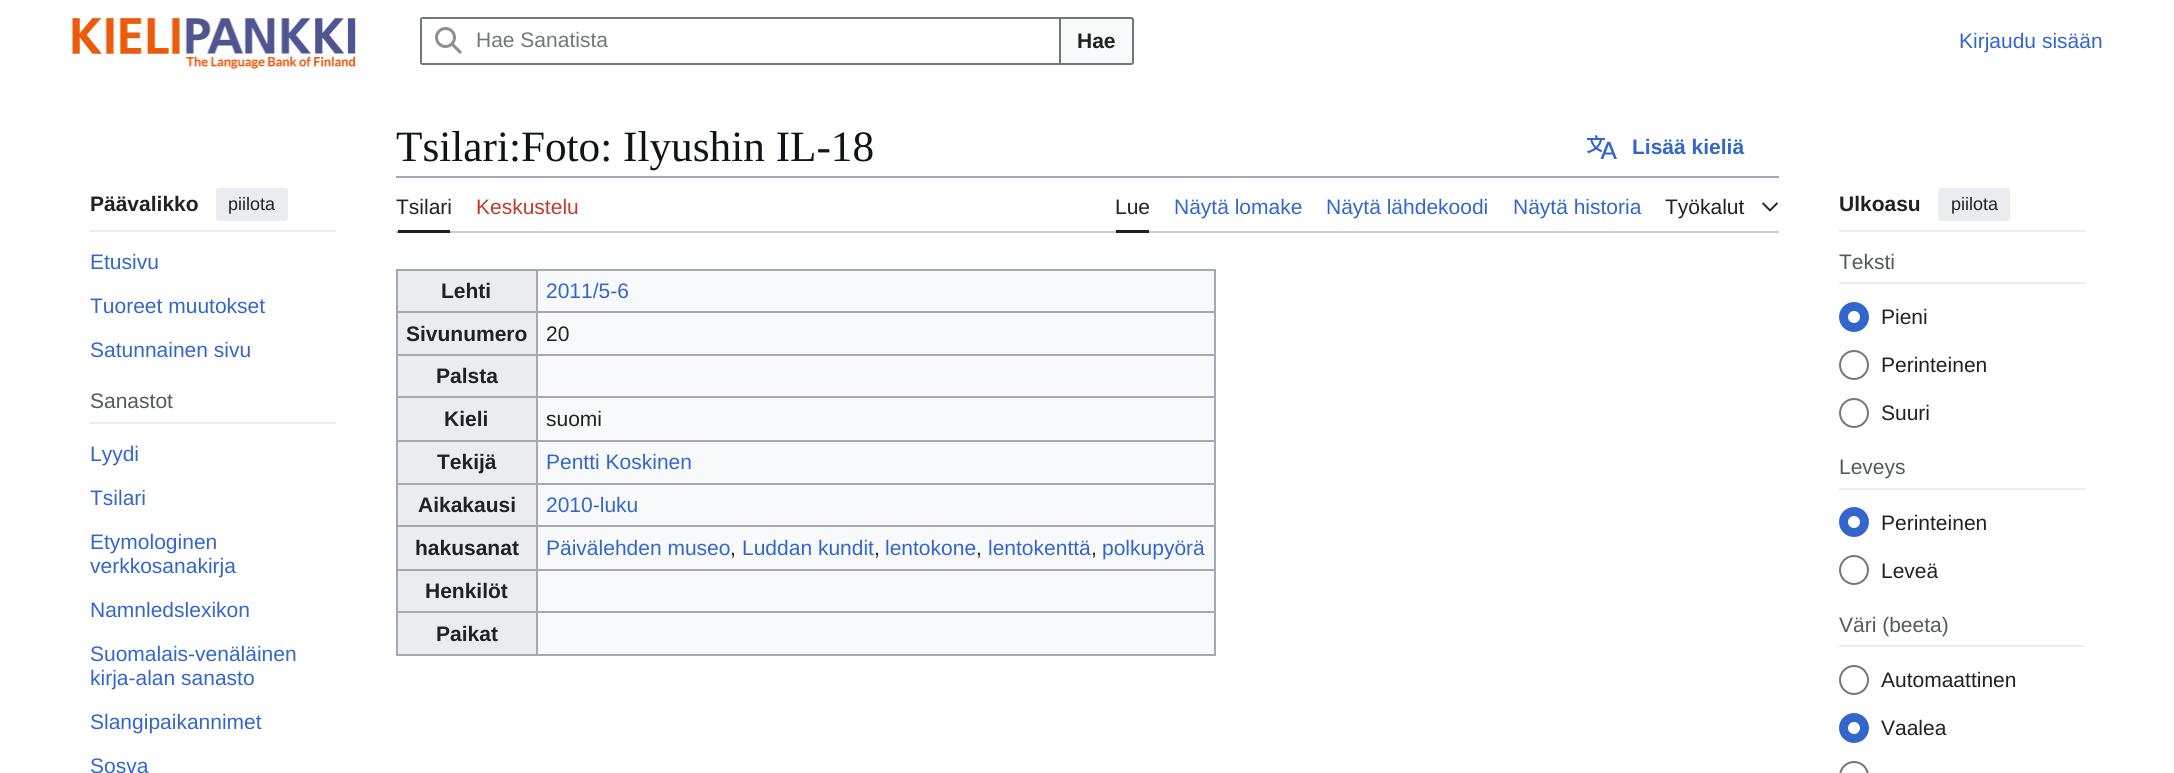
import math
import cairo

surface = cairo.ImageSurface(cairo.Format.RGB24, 2174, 773)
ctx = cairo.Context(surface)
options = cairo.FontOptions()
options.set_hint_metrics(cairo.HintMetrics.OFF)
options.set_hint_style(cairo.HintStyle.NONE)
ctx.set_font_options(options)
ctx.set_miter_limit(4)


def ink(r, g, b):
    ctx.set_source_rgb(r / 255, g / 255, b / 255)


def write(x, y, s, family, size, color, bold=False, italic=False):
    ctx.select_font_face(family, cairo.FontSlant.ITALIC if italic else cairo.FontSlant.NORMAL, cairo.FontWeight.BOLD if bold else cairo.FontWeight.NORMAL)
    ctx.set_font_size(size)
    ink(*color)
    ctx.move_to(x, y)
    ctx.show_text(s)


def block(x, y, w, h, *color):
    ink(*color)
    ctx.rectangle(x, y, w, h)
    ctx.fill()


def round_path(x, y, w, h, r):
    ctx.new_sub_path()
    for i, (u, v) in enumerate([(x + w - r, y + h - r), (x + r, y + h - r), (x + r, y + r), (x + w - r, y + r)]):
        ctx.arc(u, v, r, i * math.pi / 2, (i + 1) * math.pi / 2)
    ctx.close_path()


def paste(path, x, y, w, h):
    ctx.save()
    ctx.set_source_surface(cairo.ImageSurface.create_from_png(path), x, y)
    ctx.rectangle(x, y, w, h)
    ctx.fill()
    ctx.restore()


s1 = dict(family="Liberation Sans", size=21, color=(114, 119, 125))
s2 = dict(family="Liberation Sans", size=21, color=(32, 33, 34), bold=True)
s3 = dict(family="Liberation Sans", size=21, color=(51, 102, 204))
s4 = dict(family="Liberation Sans", size=18, color=(32, 33, 34))
s5 = dict(family="Liberation Sans", size=21, color=(84, 89, 93))
s6 = dict(family="Liberation Serif", size=43.25, color=(16, 20, 24))
s7 = dict(family="Liberation Sans", size=21, color=(51, 102, 204), bold=True)
s8 = dict(family="Liberation Sans", size=21, color=(32, 33, 34))
s9 = dict(family="Liberation Sans", size=21, color=(191, 60, 44))

ink(255, 255, 255)
ctx.paint()
paste("pic1.png", 72, 18, 284, 51)
round_path(421, 18, 712, 46, 2)
ink(162, 169, 177)
ctx.stroke()
ink(248, 249, 250)
ctx.new_path()
ctx.move_to(1060, 18)
ctx.line_to(1131, 18)
ctx.curve_to(1132, 18, 1133, 19, 1133, 20)
ctx.line_to(1133, 62)
ctx.curve_to(1133, 63, 1132, 64, 1131, 64)
ctx.line_to(1060, 64)
ctx.close_path()
ctx.fill_preserve()
ink(114, 119, 125)
ctx.stroke()
ink(255, 255, 255)
ctx.new_path()
ctx.move_to(423, 17)
ctx.line_to(1061, 17)
ctx.line_to(1061, 65)
ctx.line_to(423, 65)
ctx.curve_to(421.5, 65, 420, 63.5, 420, 62)
ctx.line_to(420, 20)
ctx.curve_to(420, 18.5, 421.5, 17, 423, 17)
ctx.close_path()
ctx.fill()
ink(114, 119, 125)
ctx.set_fill_rule(cairo.FillRule.EVEN_ODD)
ctx.new_path()
ctx.move_to(423, 17)
ctx.curve_to(421, 17, 420, 18, 420, 20)
ctx.line_to(420, 62)
ctx.curve_to(420, 64, 421, 65, 423, 65)
ctx.line_to(1061, 65)
ctx.line_to(1061, 17)
ctx.close_path()
ctx.move_to(422, 19)
ctx.line_to(422, 63)
ctx.line_to(1059, 63)
ctx.line_to(1059, 19)
ctx.close_path()
ctx.fill()
paste("pic2.png", 435, 27, 27, 27)
write(476, 47, "Hae Sanatista", **s1)
write(1077, 48, "Hae", **s2)
write(1959, 48, "Kirjaudu sisään", **s3)
block(90, 230, 246, 2, 234, 236, 240)
write(90, 211, "Päävalikko", **s2)
ink(234, 236, 240)
round_path(216, 188, 72, 33, 3)
ctx.fill()
write(228, 210, "piilota", **s4)
write(90, 269, "Etusivu", **s3)
write(90, 313, "Tuoreet muutokset", **s3)
write(90, 357, "Satunnainen sivu", **s3)
block(90, 422, 246, 2, 234, 236, 240)
write(90, 408, "Sanastot", **s5)
write(90, 461, "Lyydi", **s3)
write(90, 505, "Tsilari", **s3)
write(90, 549, "Etymologinen", **s3)
write(90, 573, "verkkosanakirja", **s3)
write(90, 617, "Namnledslexikon", **s3)
write(90, 661, "Suomalais-venäläinen", **s3)
write(90, 685, "kirja-alan sanasto", **s3)
write(90, 729, "Slangipaikannimet", **s3)
write(90, 773, "Sosva", **s3)
write(396, 161, "Tsilari:Foto: Ilyushin IL-18", **s6)
paste("pic3.png", 1587, 135, 30, 24)
write(1632, 154, "Lisää kieliä", **s7)
block(396, 176, 1383, 2, 162, 169, 177)
block(396, 231, 1383, 2, 200, 204, 209)
block(398, 230, 52, 3, 32, 33, 34)
write(396, 214, "Tsilari", **s8)
write(476, 214, "Keskustelu", **s9)
block(1116, 230, 33, 3, 32, 33, 34)
write(1115, 214, "Lue", **s8)
write(1174, 214, "Näytä lomake", **s3)
write(1326, 214, "Näytä lähdekoodi", **s3)
write(1513, 214, "Näytä historia", **s3)
write(1665, 214, "Työkalut", **s8)
paste("pic4.png", 1762, 202, 16, 10)
block(1839, 230, 246, 2, 234, 236, 240)
write(1839, 211, "Ulkoasu", **s2)
ink(234, 236, 240)
round_path(1938, 188, 72, 33, 3)
ctx.fill()
write(1951, 210, "piilota", **s4)
block(1839, 282, 246, 2, 234, 236, 240)
write(1839, 269, "Teksti", **s5)
ctx.new_path()
ctx.arc(1854, 317, 10.5, 0, 2 * math.pi)
ink(51, 102, 204)
ctx.set_line_width(9)
ctx.stroke()
write(1881, 324, "Pieni", **s8)
ctx.new_path()
ctx.arc(1854, 365, 14, 0, 2 * math.pi)
ink(114, 119, 125)
ctx.set_line_width(2)
ctx.stroke()
write(1881, 372, "Perinteinen", **s8)
ctx.new_path()
ctx.arc(1854, 413, 14, 0, 2 * math.pi)
ink(114, 119, 125)
ctx.stroke()
write(1881, 420, "Suuri", **s8)
block(1839, 488, 246, 2, 234, 236, 240)
write(1839, 474, "Leveys", **s5)
ctx.new_path()
ctx.arc(1854, 522, 10.5, 0, 2 * math.pi)
ink(51, 102, 204)
ctx.set_line_width(9)
ctx.stroke()
write(1881, 530, "Perinteinen", **s8)
ctx.new_path()
ctx.arc(1854, 570, 14, 0, 2 * math.pi)
ink(114, 119, 125)
ctx.set_line_width(2)
ctx.stroke()
write(1881, 578, "Leveä", **s8)
block(1839, 645, 246, 2, 234, 236, 240)
write(1839, 632, "Väri (beeta)", **s5)
ctx.new_path()
ctx.arc(1854, 680, 14, 0, 2 * math.pi)
ink(114, 119, 125)
ctx.stroke()
write(1881, 687, "Automaattinen", **s8)
ctx.new_path()
ctx.arc(1854, 728, 10.5, 0, 2 * math.pi)
ink(51, 102, 204)
ctx.set_line_width(9)
ctx.stroke()
write(1881, 735, "Vaalea", **s8)
round_path(1840, 762, 28, 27, 14)
ink(114, 119, 125)
ctx.set_line_width(2)
ctx.stroke()
block(538, 271, 676, 383, 248, 249, 250)
block(396, 269, 819, 2, 162, 169, 177)
block(1214, 269, 2, 387, 162, 169, 177)
block(396, 654, 819, 2, 162, 169, 177)
block(396, 269, 2, 387, 162, 169, 177)
block(398, 271, 138, 40, 234, 236, 240)
write(441, 298, "Lehti", **s2)
block(536, 311, 679, 2, 162, 169, 177)
block(536, 354, 679, 2, 162, 169, 177)
block(536, 396, 679, 2, 162, 169, 177)
block(536, 440, 679, 2, 162, 169, 177)
block(536, 483, 679, 2, 162, 169, 177)
block(536, 525, 679, 2, 162, 169, 177)
block(536, 569, 679, 2, 162, 169, 177)
block(536, 611, 679, 2, 162, 169, 177)
block(536, 611, 2, 45, 162, 169, 177)
block(396, 611, 141, 2, 162, 169, 177)
block(536, 569, 2, 43, 162, 169, 177)
block(396, 569, 141, 2, 162, 169, 177)
block(536, 525, 2, 45, 162, 169, 177)
block(396, 525, 141, 2, 162, 169, 177)
block(536, 483, 2, 44, 162, 169, 177)
block(396, 483, 141, 2, 162, 169, 177)
block(536, 440, 2, 45, 162, 169, 177)
block(396, 440, 141, 2, 162, 169, 177)
block(536, 396, 2, 45, 162, 169, 177)
block(396, 396, 141, 2, 162, 169, 177)
block(536, 354, 2, 44, 162, 169, 177)
block(396, 354, 141, 2, 162, 169, 177)
block(536, 311, 2, 45, 162, 169, 177)
block(396, 311, 141, 2, 162, 169, 177)
block(536, 269, 2, 43, 162, 169, 177)
write(546, 298, "2011/5-6", **s3)
block(398, 313, 138, 41, 234, 236, 240)
write(406, 341, "Sivunumero", **s2)
write(546, 341, "20", **s8)
block(398, 356, 138, 40, 234, 236, 240)
write(436, 383, "Palsta", **s2)
block(398, 398, 138, 42, 234, 236, 240)
write(444, 426, "Kieli", **s2)
write(546, 426, "suomi", **s8)
block(398, 442, 138, 41, 234, 236, 240)
write(437, 469, "Tekijä", **s2)
write(546, 469, "Pentti Koskinen", **s3)
block(398, 485, 138, 40, 234, 236, 240)
write(418, 512, "Aikakausi", **s2)
write(546, 512, "2010-luku", **s3)
block(398, 527, 138, 42, 234, 236, 240)
write(415, 555, "hakusanat", **s2)
write(546, 555, "Päivälehden museo", **s3)
write(730, 555, ",", **s8)
write(742, 555, "Luddan kundit", **s3)
write(874, 555, ",", **s8)
write(885, 555, "lentokone", **s3)
write(976, 555, ",", **s8)
write(988, 555, "lentokenttä", **s3)
write(1091, 555, ",", **s8)
write(1102, 555, "polkupyörä", **s3)
block(398, 571, 138, 40, 234, 236, 240)
write(425, 598, "Henkilöt", **s2)
block(398, 613, 138, 41, 234, 236, 240)
write(436, 641, "Paikat", **s2)
surface.write_to_png("screenshot.png")
